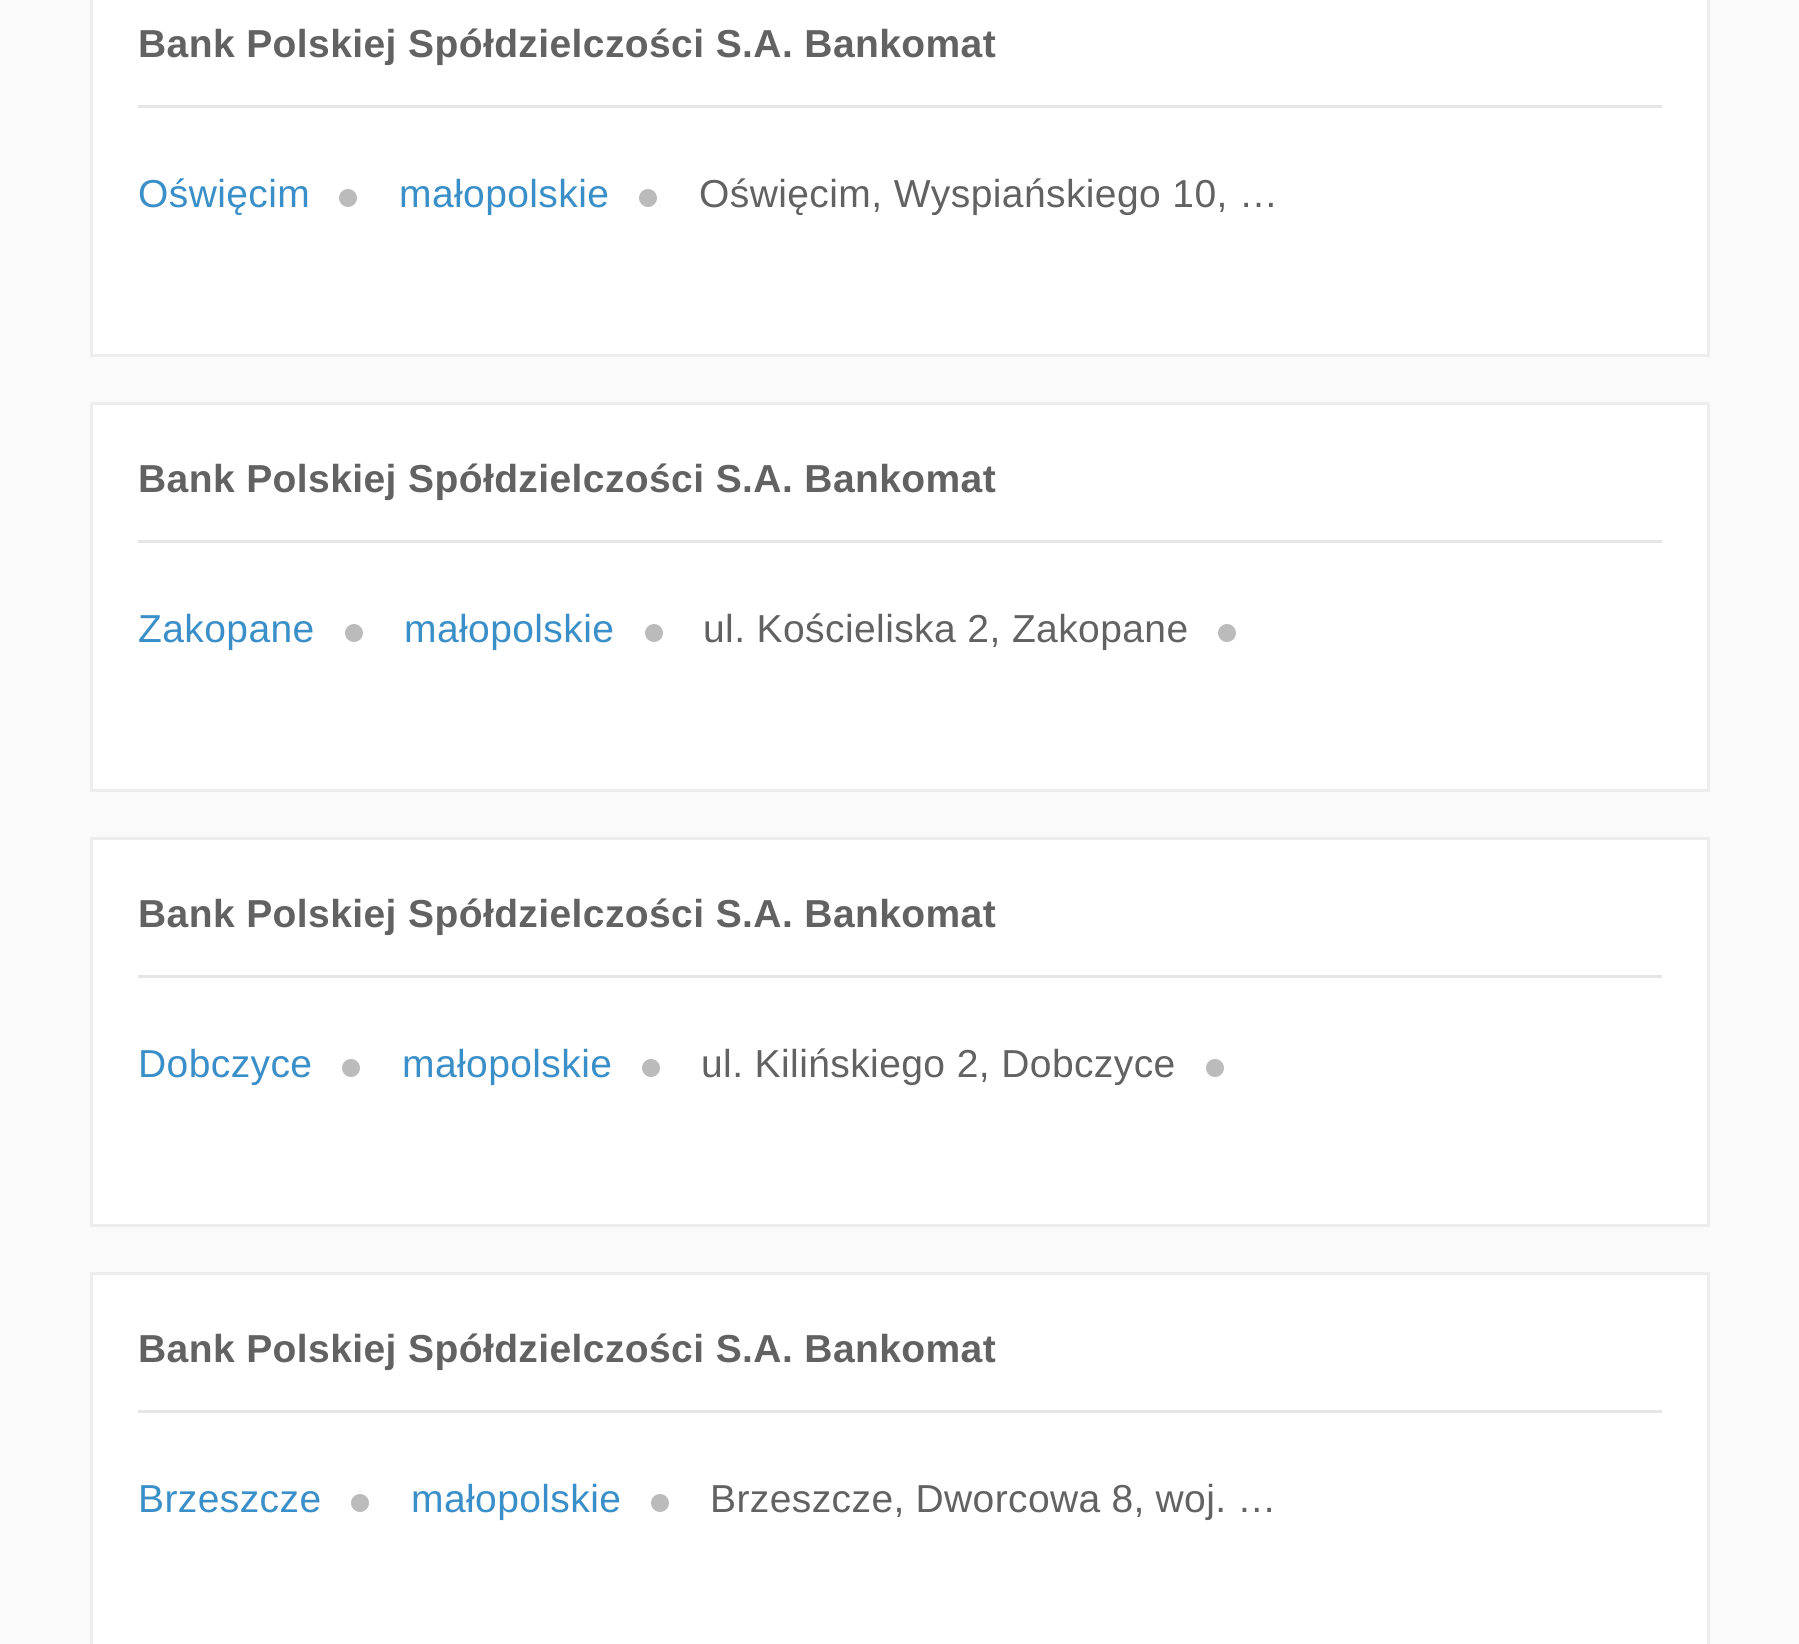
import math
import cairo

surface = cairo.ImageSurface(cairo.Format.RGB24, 1799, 1644)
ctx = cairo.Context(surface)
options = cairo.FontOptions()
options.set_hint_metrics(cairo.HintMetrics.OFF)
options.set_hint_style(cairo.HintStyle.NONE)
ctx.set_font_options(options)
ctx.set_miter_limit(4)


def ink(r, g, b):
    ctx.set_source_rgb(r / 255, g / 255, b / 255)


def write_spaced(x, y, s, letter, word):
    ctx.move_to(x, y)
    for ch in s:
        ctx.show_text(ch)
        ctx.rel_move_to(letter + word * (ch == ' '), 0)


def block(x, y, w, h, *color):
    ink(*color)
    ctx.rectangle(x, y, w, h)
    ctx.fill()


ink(250, 250, 250)
ctx.paint()
ink(255, 255, 255)
ctx.rectangle(91.5, -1.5, 1617, 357)
ctx.fill_preserve()
ink(237, 237, 237)
ctx.set_line_width(3)
ctx.stroke()
ctx.select_font_face("Liberation Sans", cairo.FontSlant.NORMAL, cairo.FontWeight.BOLD)
ctx.set_font_size(39)
ink(98, 98, 98)
write_spaced(138, 57, "Bank Polskiej Spółdzielczości S.A. Bankomat", 0.4, 0)
block(138, 105, 1524, 3, 230, 230, 230)
ctx.select_font_face("Liberation Sans")
ink(58, 143, 200)
write_spaced(138, 207, "Oświęcim", 0.4, 0)
ink(187, 187, 187)
ctx.new_path()
ctx.arc(348, 198, 9, 0, 2 * math.pi)
ctx.fill()
ink(58, 143, 200)
write_spaced(399, 207, "małopolskie", 0.4, 0)
ink(187, 187, 187)
ctx.new_path()
ctx.arc(648, 198, 9, 0, 2 * math.pi)
ctx.fill()
ink(98, 98, 98)
write_spaced(699, 207, "Oświęcim, Wyspiańskiego 10, …", 0.4, 0)
ink(255, 255, 255)
ctx.rectangle(91.5, 403.5, 1617, 387)
ctx.fill_preserve()
ink(237, 237, 237)
ctx.stroke()
ctx.select_font_face("Liberation Sans", cairo.FontSlant.NORMAL, cairo.FontWeight.BOLD)
ink(98, 98, 98)
write_spaced(138, 492, "Bank Polskiej Spółdzielczości S.A. Bankomat", 0.4, 0)
block(138, 540, 1524, 3, 230, 230, 230)
ctx.select_font_face("Liberation Sans")
ink(58, 143, 200)
write_spaced(138, 642, "Zakopane", 0.4, 0)
ink(187, 187, 187)
ctx.new_path()
ctx.arc(354, 633, 9, 0, 2 * math.pi)
ctx.fill()
ink(58, 143, 200)
write_spaced(404, 642, "małopolskie", 0.4, 0)
ink(187, 187, 187)
ctx.new_path()
ctx.arc(654, 633, 9, 0, 2 * math.pi)
ctx.fill()
ink(98, 98, 98)
write_spaced(703, 642, "ul. Kościeliska 2, Zakopane", 0.4, 0)
ink(187, 187, 187)
ctx.new_path()
ctx.arc(1227, 633, 9, 0, 2 * math.pi)
ctx.fill()
ink(255, 255, 255)
ctx.rectangle(91.5, 838.5, 1617, 387)
ctx.fill_preserve()
ink(237, 237, 237)
ctx.stroke()
ctx.select_font_face("Liberation Sans", cairo.FontSlant.NORMAL, cairo.FontWeight.BOLD)
ink(98, 98, 98)
write_spaced(138, 927, "Bank Polskiej Spółdzielczości S.A. Bankomat", 0.4, 0)
block(138, 975, 1524, 3, 230, 230, 230)
ctx.select_font_face("Liberation Sans")
ink(58, 143, 200)
write_spaced(138, 1077, "Dobczyce", 0.4, 0)
ink(187, 187, 187)
ctx.new_path()
ctx.arc(351, 1068, 9, 0, 2 * math.pi)
ctx.fill()
ink(58, 143, 200)
write_spaced(402, 1077, "małopolskie", 0.4, 0)
ink(187, 187, 187)
ctx.new_path()
ctx.arc(651, 1068, 9, 0, 2 * math.pi)
ctx.fill()
ink(98, 98, 98)
write_spaced(701, 1077, "ul. Kilińskiego 2, Dobczyce", 0.4, 0)
ink(187, 187, 187)
ctx.new_path()
ctx.arc(1215, 1068, 9, 0, 2 * math.pi)
ctx.fill()
ink(255, 255, 255)
ctx.rectangle(91.5, 1273.5, 1617, 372)
ctx.fill_preserve()
ink(237, 237, 237)
ctx.stroke()
ctx.select_font_face("Liberation Sans", cairo.FontSlant.NORMAL, cairo.FontWeight.BOLD)
ink(98, 98, 98)
write_spaced(138, 1362, "Bank Polskiej Spółdzielczości S.A. Bankomat", 0.4, 0)
block(138, 1410, 1524, 3, 230, 230, 230)
ctx.select_font_face("Liberation Sans")
ink(58, 143, 200)
write_spaced(138, 1512, "Brzeszcze", 0.4, 0)
ink(187, 187, 187)
ctx.new_path()
ctx.arc(360, 1503, 9, 0, 2 * math.pi)
ctx.fill()
ink(58, 143, 200)
write_spaced(411, 1512, "małopolskie", 0.4, 0)
ink(187, 187, 187)
ctx.new_path()
ctx.arc(660, 1503, 9, 0, 2 * math.pi)
ctx.fill()
ink(98, 98, 98)
write_spaced(710, 1512, "Brzeszcze, Dworcowa 8, woj. …", 0.4, -0.5)
surface.write_to_png("screenshot.png")
